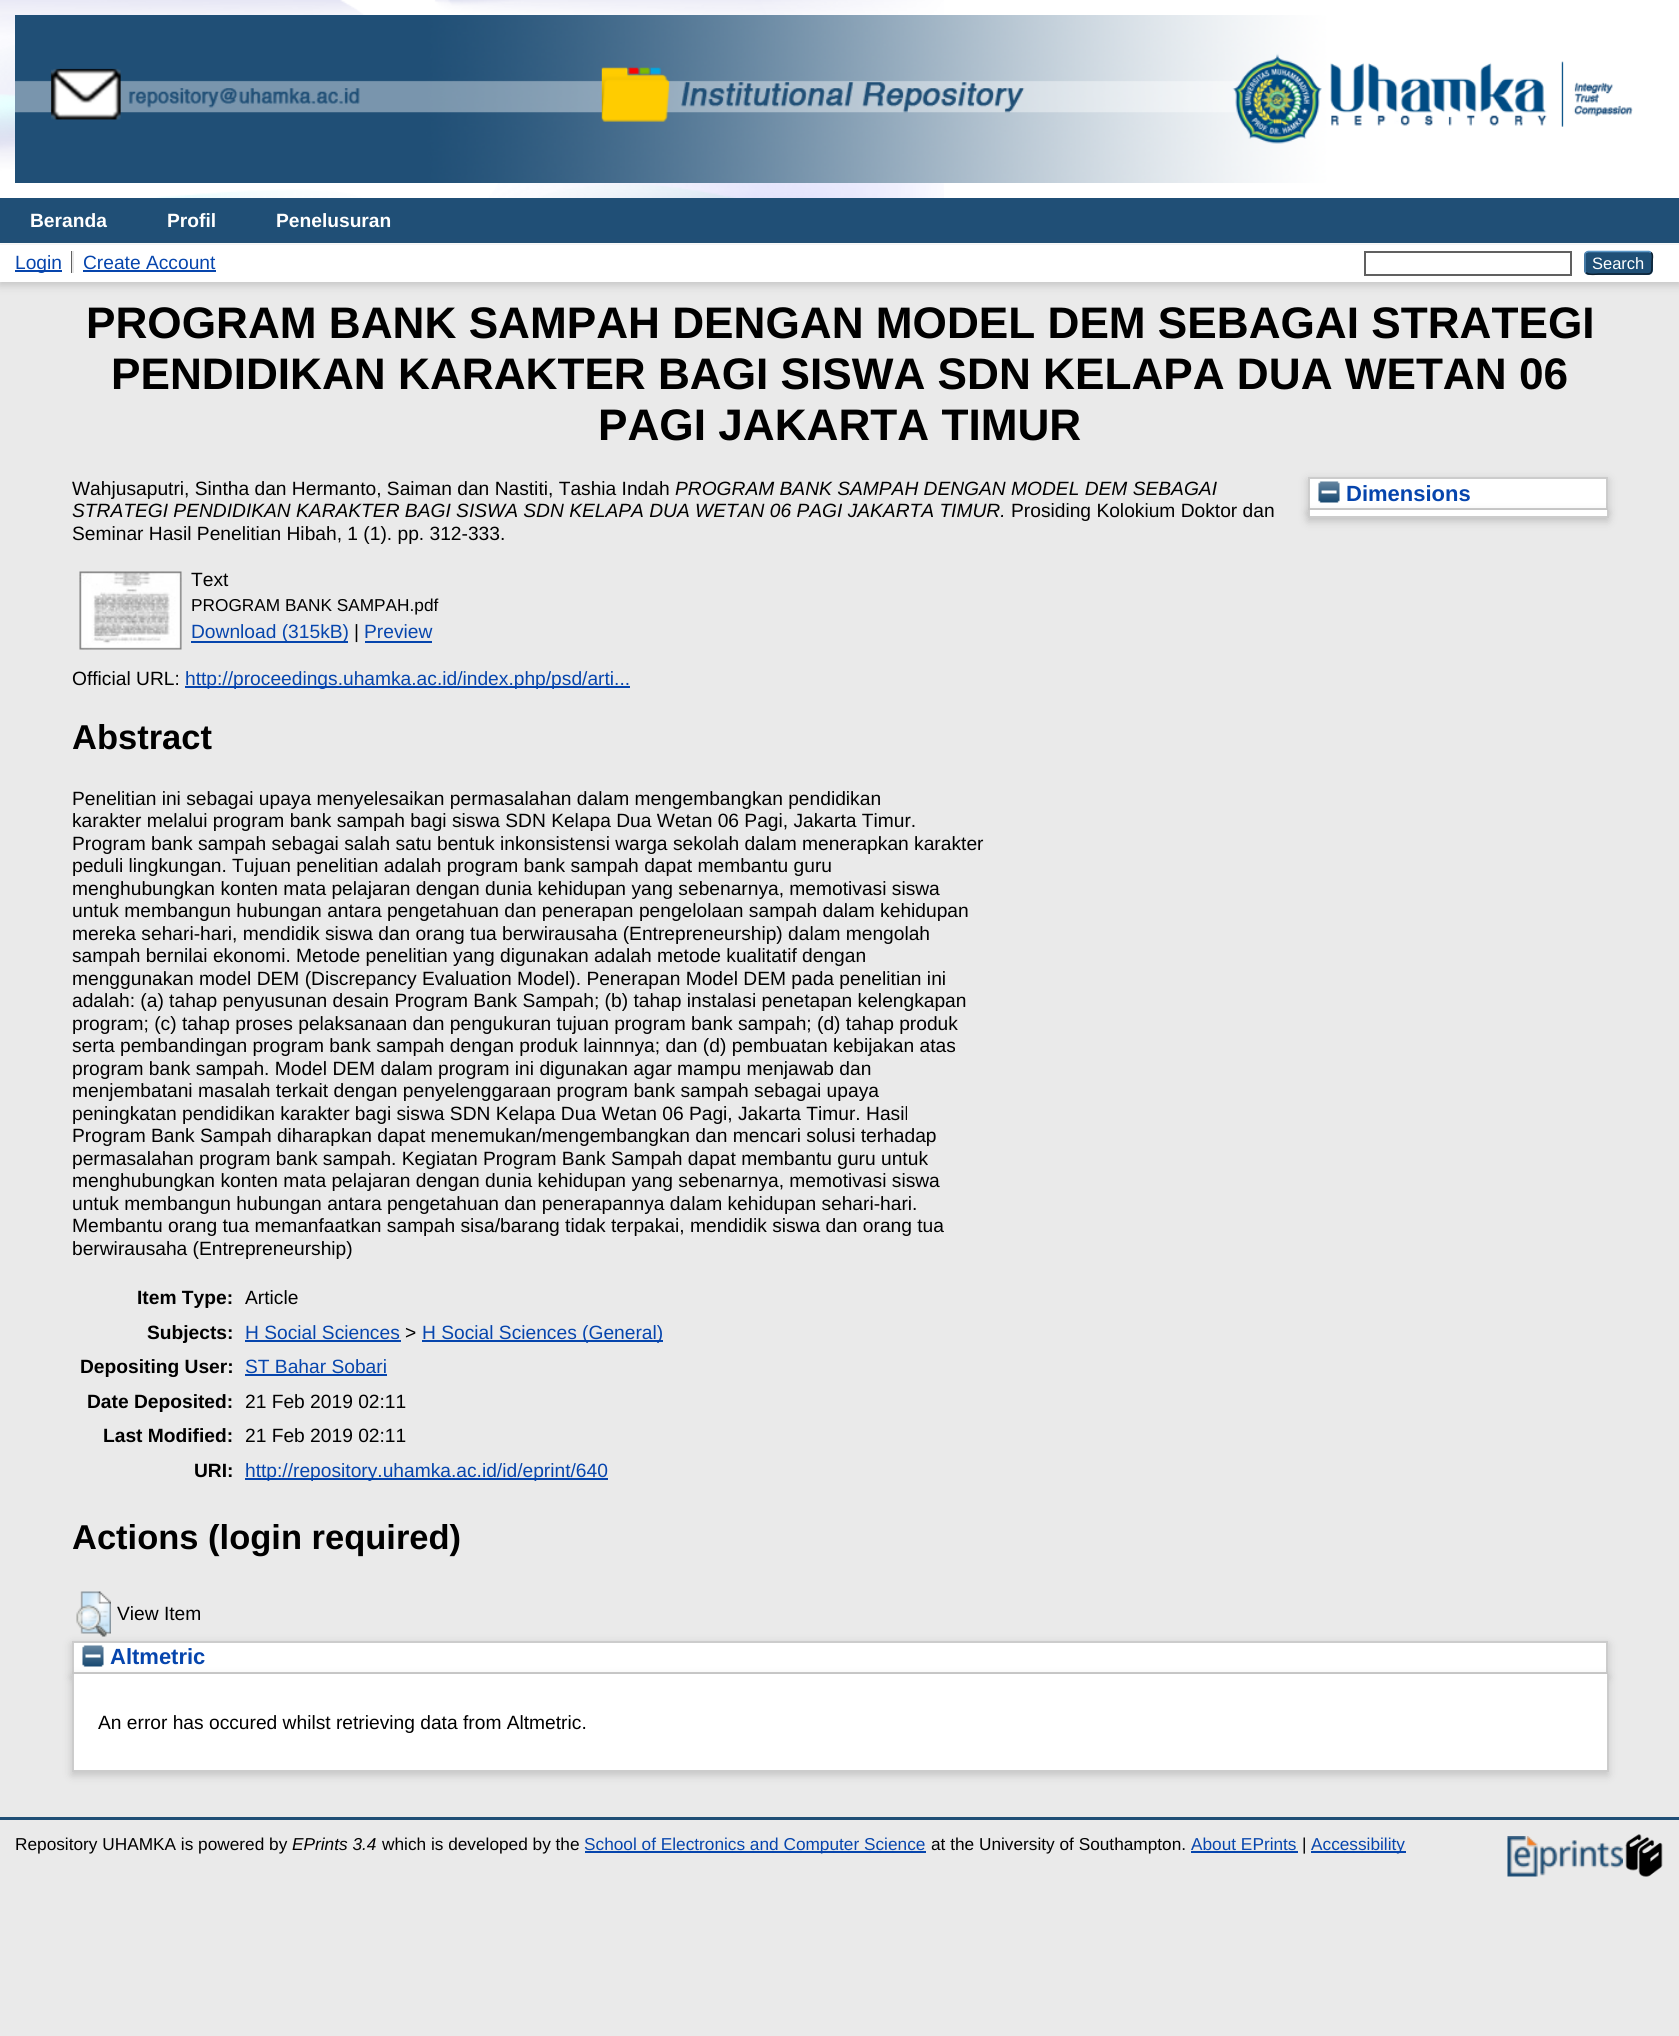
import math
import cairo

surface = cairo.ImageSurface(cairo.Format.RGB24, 1679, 2036)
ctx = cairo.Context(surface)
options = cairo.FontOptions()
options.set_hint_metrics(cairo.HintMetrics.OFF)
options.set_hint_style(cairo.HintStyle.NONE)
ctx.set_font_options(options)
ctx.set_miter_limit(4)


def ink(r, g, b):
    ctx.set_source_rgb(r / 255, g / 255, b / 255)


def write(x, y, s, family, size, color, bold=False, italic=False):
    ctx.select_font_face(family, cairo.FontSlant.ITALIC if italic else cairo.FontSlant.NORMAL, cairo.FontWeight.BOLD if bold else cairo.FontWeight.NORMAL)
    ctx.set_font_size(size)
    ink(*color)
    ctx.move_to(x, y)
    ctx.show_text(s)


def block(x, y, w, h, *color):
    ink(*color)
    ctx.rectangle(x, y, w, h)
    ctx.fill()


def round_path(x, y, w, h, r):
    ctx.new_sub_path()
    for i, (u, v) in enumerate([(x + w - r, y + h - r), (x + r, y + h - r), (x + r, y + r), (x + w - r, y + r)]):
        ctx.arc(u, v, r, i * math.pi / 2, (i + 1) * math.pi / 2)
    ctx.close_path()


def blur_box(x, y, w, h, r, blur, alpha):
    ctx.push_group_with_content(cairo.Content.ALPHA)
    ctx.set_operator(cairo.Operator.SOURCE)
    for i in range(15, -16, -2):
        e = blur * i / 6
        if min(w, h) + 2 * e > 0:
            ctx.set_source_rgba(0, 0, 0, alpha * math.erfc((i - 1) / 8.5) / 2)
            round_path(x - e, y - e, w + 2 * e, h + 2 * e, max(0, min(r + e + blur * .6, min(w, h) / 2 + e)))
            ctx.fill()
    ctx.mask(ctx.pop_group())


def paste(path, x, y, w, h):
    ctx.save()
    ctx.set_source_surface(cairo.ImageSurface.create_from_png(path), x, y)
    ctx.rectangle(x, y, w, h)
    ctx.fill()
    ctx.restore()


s1 = dict(family="Liberation Sans", size=19.2, color=(255, 255, 255), bold=True)
s2 = dict(family="Liberation Sans", size=19.2, color=(6, 69, 173))
s3 = dict(family="Liberation Sans", size=16.5, color=(255, 255, 255))
s4 = dict(family="Liberation Sans", size=44.15, color=(0, 0, 0), bold=True)
s5 = dict(family="Liberation Sans", size=19.2, color=(0, 0, 0))
s6 = dict(family="Liberation Sans", size=19.2, color=(0, 0, 0), italic=True)
s7 = dict(family="Liberation Sans", size=17.25, color=(0, 0, 0))
s8 = dict(family="Liberation Sans", size=34.5, color=(0, 0, 0), bold=True)
s9 = dict(family="Liberation Sans", size=19.2, color=(0, 0, 0), bold=True)
s10 = dict(family="Liberation Sans", size=22, color=(6, 69, 173), bold=True)
s11 = dict(family="Liberation Sans", size=17.25, color=(0, 0, 0), italic=True)
s12 = dict(family="Liberation Sans", size=17.25, color=(6, 69, 173))

ink(234, 234, 234)
ctx.paint()
block(0, 0, 1679, 198, 255, 255, 255)
paste("pic1.png", 0, 0, 944, 198)
paste("pic2.png", 15, 15, 1618, 168)
block(0, 198, 1679, 45, 32, 79, 118)
block(0, 243, 1679, 2, 255, 255, 255)
write(30, 227, "Beranda", **s1)
write(167, 227, "Profil", **s1)
write(276, 227, "Penelusuran", **s1)
ink(100, 100, 100)
blur_box(0, 248, 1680, 37, 0, 4.5, 0.3)
block(0, 245, 1679, 37, 255, 255, 255)
block(15, 270, 47, 2, 6, 69, 173)
write(15, 269, "Login", **s2)
block(71, 251, 1, 22, 96, 96, 96)
write(83, 269, "Create Account", **s2)
block(72, 251, 2, 22, 232, 232, 232)
block(83, 270, 133, 2, 6, 69, 173)
ctx.rectangle(1365, 252, 206, 23)
ink(96, 96, 96)
ctx.stroke()
ink(31, 79, 118)
round_path(1584, 251, 69, 24, 5)
ctx.fill()
ctx.new_path()
ctx.move_to(1586, 252.5)
ctx.line_to(1588, 251.5)
ctx.line_to(1649, 251.5)
ctx.line_to(1651, 252.5)
ink(91, 151, 199)
ctx.set_line_width(1.5)
ctx.stroke()
ctx.new_path()
ctx.move_to(1651, 252.5)
ctx.curve_to(1653.5, 254.5, 1652, 259.5, 1652, 262.5)
ctx.curve_to(1652, 275.5, 1652.5, 274, 1638.5, 274)
ctx.line_to(1598.5, 274)
ctx.curve_to(1598, 274, 1588.5, 275.5, 1586, 272.5)
ink(13, 33, 49)
ctx.stroke()
ctx.new_path()
ctx.move_to(1586, 272.5)
ctx.curve_to(1585, 272, 1585, 271, 1585, 270)
ctx.line_to(1585, 255)
ctx.curve_to(1585, 254, 1585, 253, 1586, 252.5)
ink(82, 135, 179)
ctx.stroke()
write(1592, 269, "Search", **s3)
write(86, 338, "PROGRAM BANK SAMPAH DENGAN MODEL DEM SEBAGAI STRATEGI", **s4)
write(111, 389, "PENDIDIKAN KARAKTER BAGI SISWA SDN KELAPA DUA WETAN 06", **s4)
write(598, 440, "PAGI JAKARTA TIMUR", **s4)
write(72, 495, "Wahjusaputri, Sintha dan Hermanto, Saiman dan Nastiti, Tashia Indah", **s5)
write(675, 495, "PROGRAM BANK SAMPAH DENGAN MODEL DEM SEBAGAI", **s6)
write(72, 517, "STRATEGI PENDIDIKAN KARAKTER BAGI SISWA SDN KELAPA DUA WETAN 06 PAGI JAKARTA TIMUR.", **s6)
write(1011, 517, "Prosiding Kolokium Doktor dan", **s5)
write(72, 540, "Seminar Hasil Penelitian Hibah, 1 (1). pp. 312-333.", **s5)
paste("pic3.png", 79, 571, 103, 79)
write(191, 586, "Text", **s5)
write(191, 611, "PROGRAM BANK SAMPAH.pdf", **s7)
block(191, 641, 157, 2, 6, 69, 173)
write(191, 638, "Download (315kB)", **s2)
write(354, 638, "|", **s5)
write(364, 638, "Preview", **s2)
block(365, 641, 67, 2, 6, 69, 173)
write(72, 685, "Official URL:", **s5)
block(185, 686, 445, 2, 6, 69, 173)
write(185, 685, "http://proceedings.uhamka.ac.id/index.php/psd/arti...", **s2)
write(72, 749, "Abstract", **s8)
write(72, 805, "Penelitian ini sebagai upaya menyelesaikan permasalahan dalam mengembangkan pendidikan", **s5)
write(72, 827, "karakter melalui program bank sampah bagi siswa SDN Kelapa Dua Wetan 06 Pagi, Jakarta Timur.", **s5)
write(72, 850, "Program bank sampah sebagai salah satu bentuk inkonsistensi warga sekolah dalam menerapkan karakter", **s5)
write(72, 872, "peduli lingkungan. Tujuan penelitian adalah program bank sampah dapat membantu guru", **s5)
write(72, 895, "menghubungkan konten mata pelajaran dengan dunia kehidupan yang sebenarnya, memotivasi siswa", **s5)
write(72, 917, "untuk membangun hubungan antara pengetahuan dan penerapan pengelolaan sampah dalam kehidupan", **s5)
write(72, 940, "mereka sehari-hari, mendidik siswa dan orang tua berwirausaha (Entrepreneurship) dalam mengolah", **s5)
write(72, 962, "sampah bernilai ekonomi. Metode penelitian yang digunakan adalah metode kualitatif dengan", **s5)
write(72, 985, "menggunakan model DEM (Discrepancy Evaluation Model). Penerapan Model DEM pada penelitian ini", **s5)
write(72, 1007, "adalah: (a) tahap penyusunan desain Program Bank Sampah; (b) tahap instalasi penetapan kelengkapan", **s5)
write(72, 1030, "program; (c) tahap proses pelaksanaan dan pengukuran tujuan program bank sampah; (d) tahap produk", **s5)
write(72, 1052, "serta pembandingan program bank sampah dengan produk lainnnya; dan (d) pembuatan kebijakan atas", **s5)
write(72, 1075, "program bank sampah. Model DEM dalam program ini digunakan agar mampu menjawab dan", **s5)
write(72, 1097, "menjembatani masalah terkait dengan penyelenggaraan program bank sampah sebagai upaya", **s5)
write(72, 1120, "peningkatan pendidikan karakter bagi siswa SDN Kelapa Dua Wetan 06 Pagi, Jakarta Timur. Hasil", **s5)
write(72, 1142, "Program Bank Sampah diharapkan dapat menemukan/mengembangkan dan mencari solusi terhadap", **s5)
write(72, 1165, "permasalahan program bank sampah. Kegiatan Program Bank Sampah dapat membantu guru untuk", **s5)
write(72, 1187, "menghubungkan konten mata pelajaran dengan dunia kehidupan yang sebenarnya, memotivasi siswa", **s5)
write(72, 1210, "untuk membangun hubungan antara pengetahuan dan penerapannya dalam kehidupan sehari-hari.", **s5)
write(72, 1232, "Membantu orang tua memanfaatkan sampah sisa/barang tidak terpakai, mendidik siswa dan orang tua", **s5)
write(72, 1255, "berwirausaha (Entrepreneurship)", **s5)
write(137, 1304, "Item Type:", **s9)
write(245, 1304, "Article", **s5)
write(147, 1339, "Subjects:", **s9)
write(245, 1339, "H Social Sciences", **s2)
block(245, 1340, 156, 2, 6, 69, 173)
write(405, 1339, ">", **s5)
block(422, 1340, 241, 2, 6, 69, 173)
write(422, 1339, "H Social Sciences (General)", **s2)
write(80, 1373, "Depositing User:", **s9)
write(245, 1373, "ST Bahar Sobari", **s2)
block(245, 1374, 142, 2, 6, 69, 173)
write(87, 1408, "Date Deposited:", **s9)
write(245, 1408, "21 Feb 2019 02:11", **s5)
write(103, 1442, "Last Modified:", **s9)
write(245, 1442, "21 Feb 2019 02:11", **s5)
write(194, 1477, "URI:", **s9)
block(245, 1478, 363, 2, 6, 69, 173)
write(245, 1477, "http://repository.uhamka.ac.id/id/eprint/640", **s2)
write(72, 1549, "Actions (login required)", **s8)
ink(100, 100, 100)
blur_box(72, 1644, 1536, 33, 0, 4.5, 0.3)
paste("pic4.png", 76, 1591, 35, 46)
write(117, 1620, "View Item", **s5)
ink(100, 100, 100)
blur_box(1308, 480, 300, 33, 0, 4.5, 0.3)
ink(255, 255, 255)
ctx.rectangle(1309, 478, 298, 31)
ctx.fill_preserve()
ink(204, 204, 204)
ctx.set_line_width(2)
ctx.stroke()
ink(100, 100, 100)
blur_box(1308, 513, 300, 8, 0, 4.5, 0.3)
paste("pic5.png", 1318, 481, 22, 22)
write(1346, 501, "Dimensions", **s10)
block(1308, 510, 300, 6, 255, 255, 255)
block(1607, 510, 2, 8, 204, 204, 204)
block(1308, 516, 300, 2, 204, 204, 204)
block(1308, 510, 2, 8, 204, 204, 204)
ink(255, 255, 255)
ctx.rectangle(73, 1642, 1534, 31)
ctx.fill_preserve()
ink(204, 204, 204)
ctx.stroke()
ink(100, 100, 100)
blur_box(72, 1677, 1536, 98, 0, 4.5, 0.3)
paste("pic6.png", 82, 1645, 22, 22)
write(110, 1664, "Altmetric", **s10)
block(74, 1674, 1533, 96, 255, 255, 255)
block(1607, 1674, 2, 98, 204, 204, 204)
block(72, 1770, 1536, 2, 204, 204, 204)
block(72, 1674, 2, 98, 204, 204, 204)
write(98, 1729, "An error has occured whilst retrieving data from Altmetric.", **s5)
block(0, 1817, 1679, 3, 32, 79, 118)
write(15, 1850, "Repository UHAMKA is powered by", **s7)
write(292, 1850, "EPrints 3.4", **s11)
write(382, 1850, "which is developed by the", **s7)
block(585, 1851, 341, 2, 6, 69, 173)
write(584, 1850, "School of Electronics and Computer Science", **s12)
write(931, 1850, "at the University of Southampton.", **s7)
write(1191, 1850, "About EPrints", **s12)
block(1191, 1851, 107, 2, 6, 69, 173)
write(1302, 1850, "|", **s7)
block(1311, 1851, 95, 2, 6, 69, 173)
write(1311, 1850, "Accessibility", **s12)
paste("pic7.png", 1507, 1836, 116, 41)
paste("pic8.png", 1625, 1834, 38, 43)
surface.write_to_png("screenshot.png")
